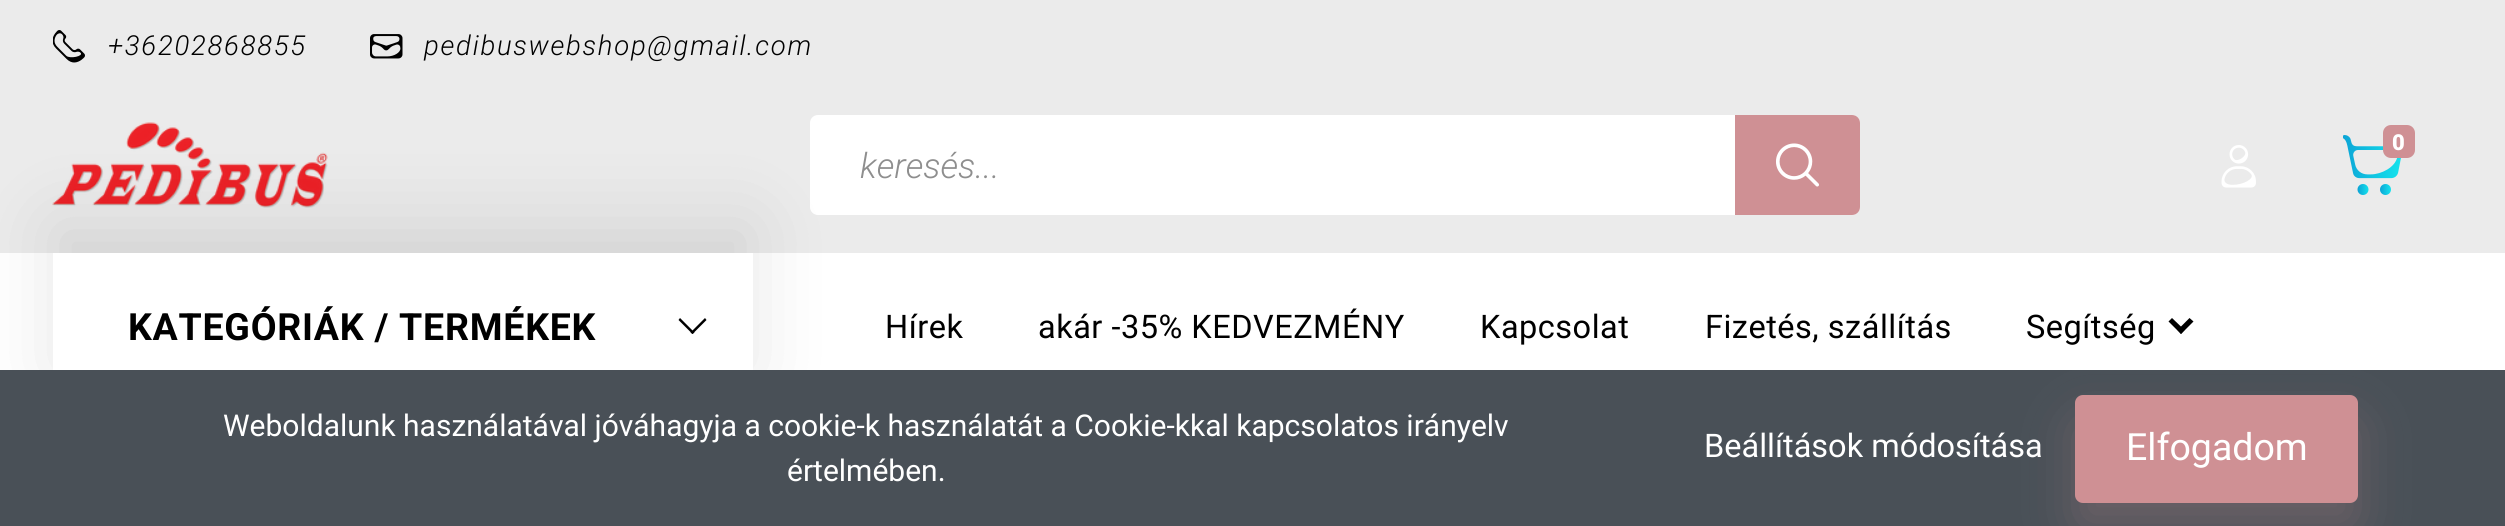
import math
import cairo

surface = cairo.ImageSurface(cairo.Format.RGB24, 2505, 526)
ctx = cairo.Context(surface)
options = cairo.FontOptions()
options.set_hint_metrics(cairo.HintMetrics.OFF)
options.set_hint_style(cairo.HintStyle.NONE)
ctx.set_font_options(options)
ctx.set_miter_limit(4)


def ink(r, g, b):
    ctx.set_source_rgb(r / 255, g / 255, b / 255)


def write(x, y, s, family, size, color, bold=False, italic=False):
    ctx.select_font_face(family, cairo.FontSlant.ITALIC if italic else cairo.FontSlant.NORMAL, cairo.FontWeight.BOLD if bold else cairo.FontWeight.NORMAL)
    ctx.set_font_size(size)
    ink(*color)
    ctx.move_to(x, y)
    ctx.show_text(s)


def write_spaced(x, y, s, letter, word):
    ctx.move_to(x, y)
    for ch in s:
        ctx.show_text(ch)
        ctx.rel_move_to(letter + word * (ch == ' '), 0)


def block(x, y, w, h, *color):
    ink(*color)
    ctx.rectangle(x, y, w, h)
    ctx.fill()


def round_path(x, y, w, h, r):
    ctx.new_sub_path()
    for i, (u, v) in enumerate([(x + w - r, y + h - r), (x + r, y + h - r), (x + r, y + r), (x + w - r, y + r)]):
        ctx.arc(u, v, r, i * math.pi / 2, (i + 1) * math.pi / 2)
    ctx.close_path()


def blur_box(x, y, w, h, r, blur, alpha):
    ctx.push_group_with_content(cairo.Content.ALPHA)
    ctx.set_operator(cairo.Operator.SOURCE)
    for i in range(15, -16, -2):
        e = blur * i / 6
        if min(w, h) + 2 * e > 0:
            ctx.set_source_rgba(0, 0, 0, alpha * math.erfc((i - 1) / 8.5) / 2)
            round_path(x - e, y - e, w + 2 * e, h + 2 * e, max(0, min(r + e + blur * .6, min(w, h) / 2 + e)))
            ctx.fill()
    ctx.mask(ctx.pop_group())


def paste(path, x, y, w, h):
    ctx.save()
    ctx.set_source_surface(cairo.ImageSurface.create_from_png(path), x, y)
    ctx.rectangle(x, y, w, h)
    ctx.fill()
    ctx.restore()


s1 = dict(family="Roboto Light", size=35, color=(142, 142, 142), italic=True)
s2 = dict(family="Roboto", size=30, color=(255, 255, 255))
s3 = dict(family="Roboto", size=32.5, color=(255, 255, 255))
s4 = dict(family="Roboto", size=37.5, color=(255, 255, 255))

ink(235, 235, 235)
ctx.paint()
paste("pic1.png", 53, 30, 32, 33)
ctx.select_font_face("Roboto Light", cairo.FontSlant.ITALIC)
ctx.set_font_size(27.5)
ink(0, 0, 0)
write_spaced(108, 55, "+36202868855", 1.75, 0)
paste("pic2.png", 370, 34, 33, 25)
write_spaced(424, 55, "pedibuswebshop@gmail.com", 1.75, 0)
paste("pic3.png", 52, 122, 276, 86)
paste("pic4.png", 2343, 135, 58, 60)
ink(207, 144, 148)
round_path(2383, 125, 32, 33, 8)
ctx.fill()
ctx.select_font_face("Roboto Black")
ctx.set_font_size(22)
ink(255, 255, 255)
write_spaced(2392, 150, "0", 0.5, 0)
paste("pic5.png", 2221, 145, 35, 43)
round_path(810, 115, 1050, 100, 8)
ctx.fill()
write(860, 178, "keresés...", **s1)
ink(207, 144, 148)
ctx.new_path()
ctx.move_to(1735, 115)
ctx.line_to(1852, 115)
ctx.curve_to(1856.5, 115, 1860, 118.5, 1860, 123)
ctx.line_to(1860, 207)
ctx.curve_to(1860, 211.5, 1856.5, 215, 1852, 215)
ctx.line_to(1735, 215)
ctx.close_path()
ctx.fill()
paste("pic6.png", 1776, 143, 43, 44)
block(0, 253, 2505, 117, 255, 255, 255)
ctx.save()
ctx.set_fill_rule(cairo.FillRule.EVEN_ODD)
ctx.new_path()
ctx.move_to(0, 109)
ctx.line_to(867, 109)
ctx.line_to(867, 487)
ctx.line_to(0, 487)
ctx.close_path()
ctx.move_to(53, 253)
ctx.line_to(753, 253)
ctx.line_to(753, 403)
ctx.line_to(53, 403)
ctx.close_path()
ctx.clip()
ink(0, 0, 0)
blur_box(53, 223, 700, 150, 0, 37.5, 0.1)
ctx.restore()
ctx.select_font_face("Roboto", cairo.FontSlant.NORMAL, cairo.FontWeight.BOLD)
ctx.set_font_size(37.5)
ink(0, 0, 0)
write_spaced(128, 340, "KATEGÓRIÁK / TERMÉKEK", 0.75, 0)
ctx.new_path()
ctx.move_to(705, 318)
ctx.line_to(706.5, 320)
ctx.line_to(692.5, 334)
ctx.line_to(690.5, 332.5)
ctx.close_path()
ctx.fill()
ctx.new_path()
ctx.move_to(680, 318)
ctx.line_to(694.5, 332.5)
ctx.line_to(692.5, 334)
ctx.line_to(678.5, 320)
ctx.close_path()
ctx.fill()
ctx.select_font_face("Roboto")
ctx.set_font_size(32.5)
write_spaced(885, 338, "Hírek", 0.5, 0)
write_spaced(1038, 338, "akár -35% KEDVEZMÉNY", 0.5, 0)
write_spaced(1480, 338, "Kapcsolat", 0.5, 0)
write_spaced(1705, 338, "Fizetés, szállítás", 0.5, 0)
write_spaced(2026, 338, "Segítség", 0.5, 0)
ctx.new_path()
ctx.move_to(2189.5, 318)
ctx.line_to(2193.5, 321.5)
ctx.line_to(2181, 334)
ctx.line_to(2177.5, 330)
ctx.close_path()
ctx.fill()
ctx.new_path()
ctx.move_to(2172, 318)
ctx.line_to(2184.5, 330)
ctx.line_to(2181, 334)
ctx.line_to(2168.5, 321.5)
ctx.close_path()
ctx.fill()
block(0, 370, 2505, 156, 73, 80, 87)
write(223, 436, "Weboldalunk használatával jóváhagyja a cookie-k használatát a Cookie-kkal kapcsolatos irányelv", **s2)
write(787, 481, "értelmében.", **s2)
write(1704, 457, "Beállítások módosítása", **s3)
ink(207, 144, 148)
blur_box(2075, 420, 283, 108, 8, 25, 0.25)
ink(207, 144, 148)
round_path(2075, 395, 283, 108, 8)
ctx.fill()
write(2126, 460, "Elfogadom", **s4)
surface.write_to_png("screenshot.png")
